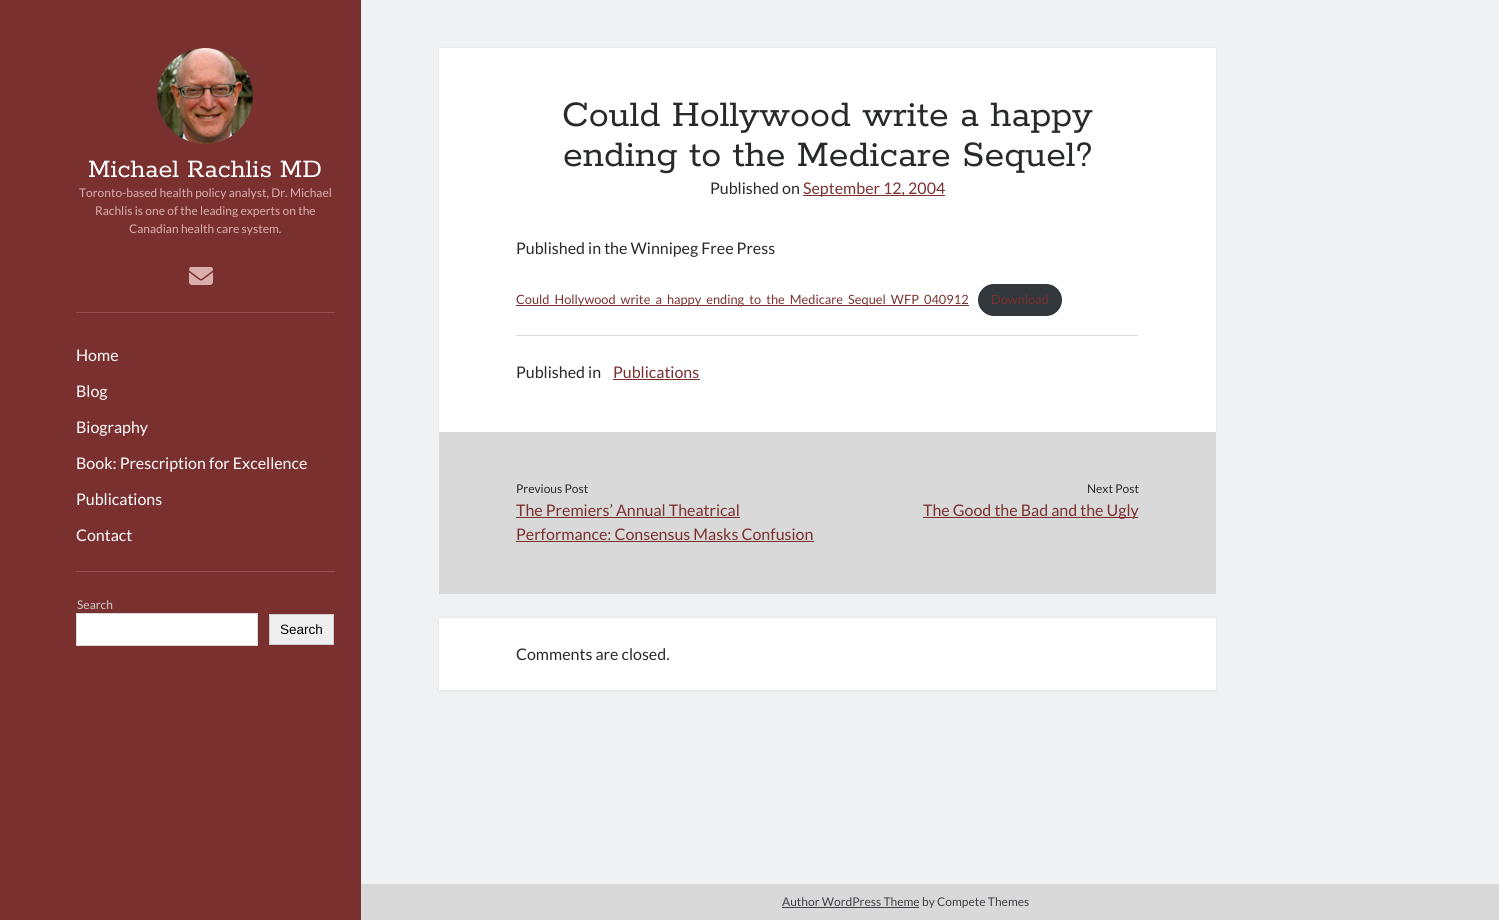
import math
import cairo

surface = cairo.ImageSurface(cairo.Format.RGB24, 1499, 920)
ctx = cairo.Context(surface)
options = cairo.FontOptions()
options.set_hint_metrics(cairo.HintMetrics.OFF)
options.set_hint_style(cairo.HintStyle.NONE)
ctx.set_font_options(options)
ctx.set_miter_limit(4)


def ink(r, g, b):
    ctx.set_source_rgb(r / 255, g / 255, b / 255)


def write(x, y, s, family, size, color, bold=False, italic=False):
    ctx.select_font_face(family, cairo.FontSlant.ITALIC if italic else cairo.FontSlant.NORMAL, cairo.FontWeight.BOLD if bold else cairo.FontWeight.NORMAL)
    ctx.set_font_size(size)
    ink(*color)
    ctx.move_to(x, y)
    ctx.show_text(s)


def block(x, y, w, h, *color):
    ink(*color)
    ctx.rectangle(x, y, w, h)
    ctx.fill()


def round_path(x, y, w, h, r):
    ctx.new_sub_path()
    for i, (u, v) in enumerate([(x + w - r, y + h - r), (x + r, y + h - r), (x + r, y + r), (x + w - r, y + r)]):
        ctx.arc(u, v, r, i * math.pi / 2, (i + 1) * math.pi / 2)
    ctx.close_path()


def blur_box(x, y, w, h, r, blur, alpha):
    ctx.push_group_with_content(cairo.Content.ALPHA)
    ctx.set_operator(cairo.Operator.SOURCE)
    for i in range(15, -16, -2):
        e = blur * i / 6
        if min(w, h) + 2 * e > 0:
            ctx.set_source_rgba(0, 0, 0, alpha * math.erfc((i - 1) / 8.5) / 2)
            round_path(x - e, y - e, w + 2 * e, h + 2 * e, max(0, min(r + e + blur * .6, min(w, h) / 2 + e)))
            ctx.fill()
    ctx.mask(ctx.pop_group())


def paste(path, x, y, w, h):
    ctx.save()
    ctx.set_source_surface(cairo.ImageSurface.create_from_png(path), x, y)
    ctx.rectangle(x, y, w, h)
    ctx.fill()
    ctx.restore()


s1 = dict(family="Rokkitt", size=28, color=(255, 255, 255))
s2 = dict(family="Lato", size=12, color=(219, 174, 174))
s3 = dict(family="Lato", size=16, color=(255, 255, 255))
s4 = dict(family="Lato", size=12, color=(204, 204, 204))
s5 = dict(family="Liberation Sans", size=13.5, color=(0, 0, 0))
s6 = dict(family="Rokkitt", size=40, color=(39, 41, 43))
s7 = dict(family="Lato", size=16, color=(39, 41, 43))
s8 = dict(family="Lato", size=16, color=(123, 48, 48))
s9 = dict(family="Lato", size=12.8, color=(123, 48, 48))
s10 = dict(family="Lato", size=12, color=(39, 41, 43))
s11 = dict(family="Lato", size=12, color=(62, 65, 69))

ink(123, 48, 48)
ctx.paint()
block(361, 0, 1138, 884, 240, 241, 242)
paste("pic1.png", 157, 48, 96, 96)
write(88, 177, "Michael Rachlis MD", **s1)
write(79, 197, "Toronto-based health policy analyst, Dr. Michael", **s2)
write(95, 215, "Rachlis is one of the leading experts on the", **s2)
write(129, 233, "Canadian health care system.", **s2)
paste("pic2.png", 189, 267, 24, 18)
block(76, 312, 259, 1, 147, 77, 77)
write(76, 361, "Home", **s3)
write(76, 397, "Blog", **s3)
write(76, 433, "Biography", **s3)
write(76, 469, "Book: Prescription for Excellence", **s3)
write(76, 505, "Publications", **s3)
write(76, 541, "Contact", **s3)
block(76, 571, 259, 1, 147, 77, 77)
write(77, 609, "Search", **s4)
ink(255, 255, 255)
ctx.rectangle(76.5, 613.5, 181, 32)
ctx.fill_preserve()
ink(217, 217, 217)
ctx.set_line_width(1)
ctx.stroke()
ink(239, 239, 239)
ctx.rectangle(269.5, 614.5, 64, 30)
ctx.fill_preserve()
ink(204, 204, 204)
ctx.stroke()
write(280, 634, "Search", **s5)
ink(39, 43, 47)
blur_box(439, 48, 777, 384, 0, 1, 0.1)
block(439, 48, 777, 384, 255, 255, 255)
write(562, 126, "Could Hollywood write a happy", **s6)
write(563, 166, "ending to the Medicare Sequel?", **s6)
write(710, 194, "Published on", **s7)
block(803, 195, 142, 1, 123, 48, 48)
write(803, 194, "September 12, 2004", **s8)
block(516, 335, 622, 1, 217, 217, 217)
write(516, 254, "Published in the Winnipeg Free Press", **s7)
block(516, 305, 453, 1, 123, 48, 48)
write(516, 304, "Could_Hollywood_write_a_happy_ending_to_the_Medicare_Sequel_WFP_040912", **s9)
ink(50, 55, 60)
round_path(978, 284, 84, 32, 16)
ctx.fill()
write(991, 304, "Download", **s9)
write(516, 378, "Published in", **s7)
write(613, 378, "Publications", **s8)
block(613, 379, 87, 1, 123, 48, 48)
block(439, 432, 777, 162, 217, 217, 217)
write(516, 493, "Previous Post", **s10)
write(516, 516, "The Premiers’ Annual Theatrical", **s8)
block(516, 517, 224, 1, 123, 48, 48)
write(516, 540, "Performance: Consensus Masks Confusion", **s8)
block(516, 541, 298, 1, 123, 48, 48)
write(1087, 493, "Next Post", **s10)
block(923, 517, 215, 1, 123, 48, 48)
write(923, 516, "The Good the Bad and the Ugly", **s8)
ink(39, 43, 47)
blur_box(439, 618, 777, 72, 0, 1, 0.1)
block(439, 618, 777, 72, 255, 255, 255)
write(516, 660, "Comments are closed.", **s7)
block(361, 884, 1138, 36, 217, 217, 217)
block(782, 907, 137, 1, 62, 65, 69)
write(782, 906, "Author WordPress Theme by Compete Themes", **s11)
surface.write_to_png("screenshot.png")
